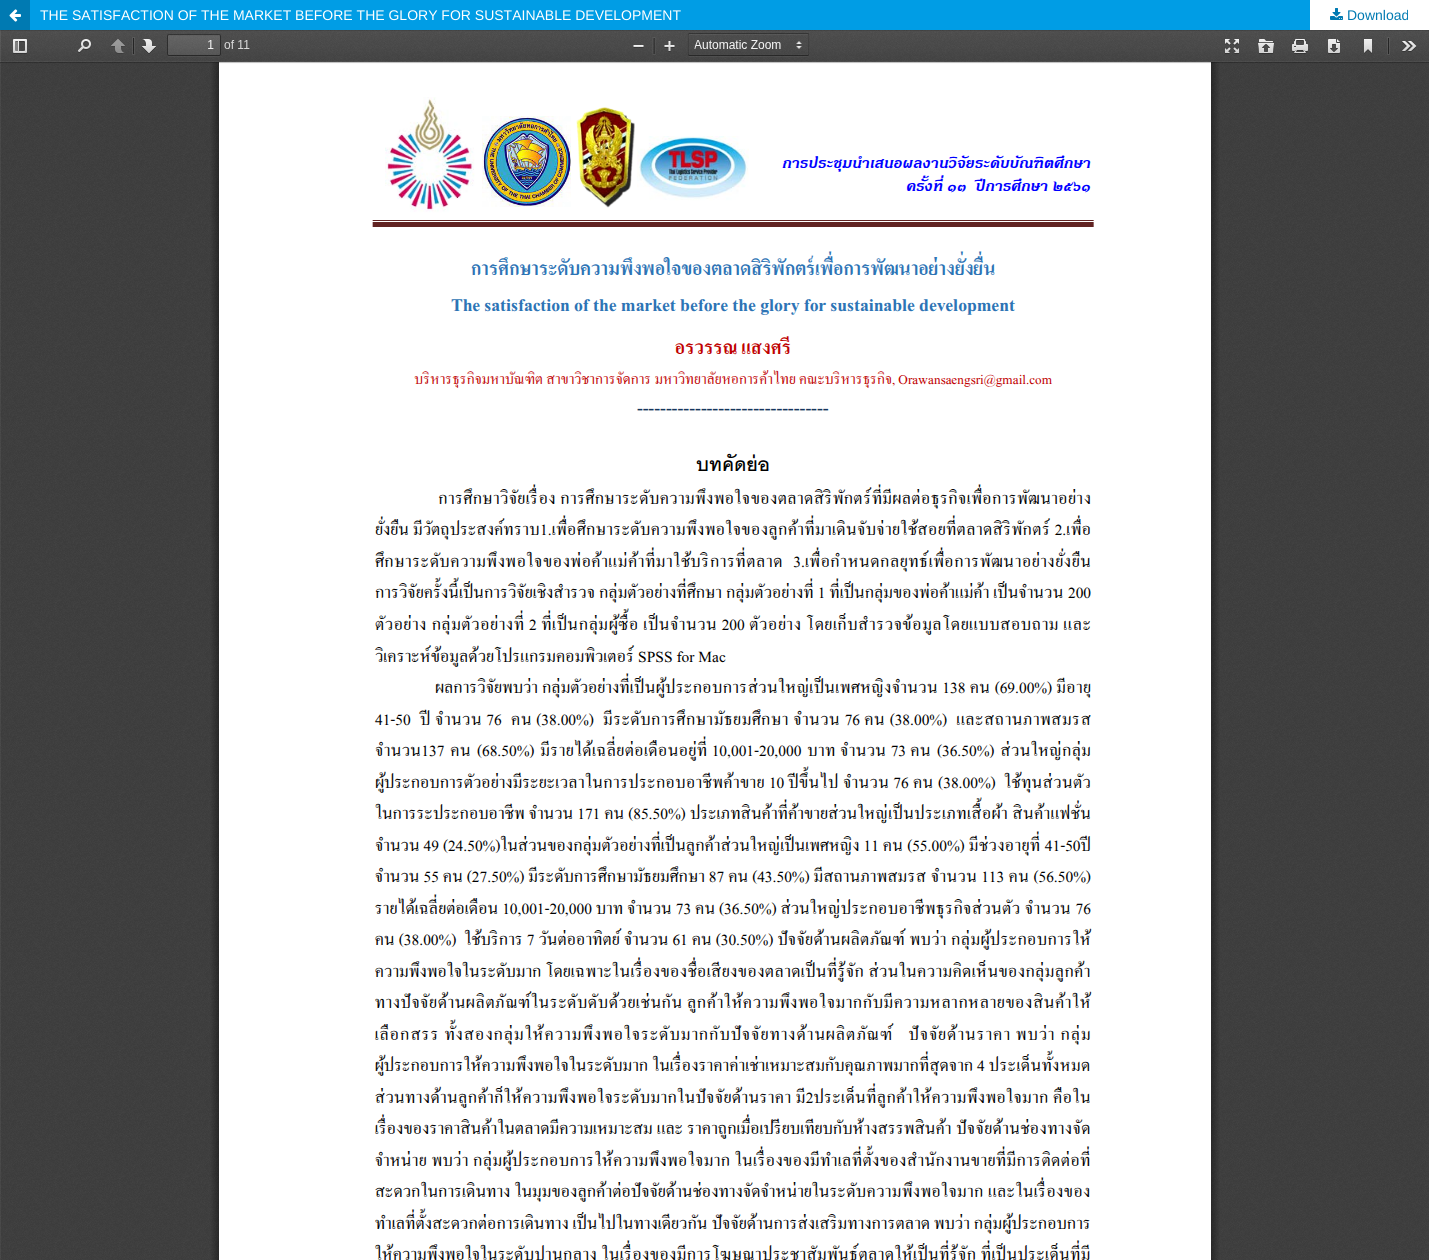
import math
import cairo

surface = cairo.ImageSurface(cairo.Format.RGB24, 1429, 1260)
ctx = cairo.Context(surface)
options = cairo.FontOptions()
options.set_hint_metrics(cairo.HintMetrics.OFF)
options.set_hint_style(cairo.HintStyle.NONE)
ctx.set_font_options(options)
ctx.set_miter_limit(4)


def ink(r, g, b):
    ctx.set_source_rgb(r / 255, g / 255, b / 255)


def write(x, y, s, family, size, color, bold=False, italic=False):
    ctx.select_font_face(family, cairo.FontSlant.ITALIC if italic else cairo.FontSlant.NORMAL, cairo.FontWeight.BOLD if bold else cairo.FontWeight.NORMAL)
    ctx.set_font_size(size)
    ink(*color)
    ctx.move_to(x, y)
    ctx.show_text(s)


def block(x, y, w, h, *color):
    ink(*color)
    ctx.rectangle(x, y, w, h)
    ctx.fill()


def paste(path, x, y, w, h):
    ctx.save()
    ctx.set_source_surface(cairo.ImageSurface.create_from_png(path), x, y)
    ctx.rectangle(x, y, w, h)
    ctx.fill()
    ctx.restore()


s1 = dict(family="Liberation Sans", size=14, color=(255, 255, 255))
s2 = dict(family="Liberation Sans", size=14, color=(0, 122, 178))

ink(255, 255, 255)
ctx.paint()
block(30, 0, 1280, 30, 0, 157, 229)
block(0, 0, 30, 30, 0, 122, 178)
paste("pic1.png", 9, 9, 12, 13)
write(40, 20, "THE SATISFACTION OF THE MARKET BEFORE THE GLORY FOR SUSTAINABLE DEVELOPMENT", **s1)
paste("pic2.png", 1330, 8, 13, 12)
write(1347, 20, "Download", **s2)
paste("pic3.png", 0, 30, 1429, 1230)
surface.write_to_png("screenshot.png")
